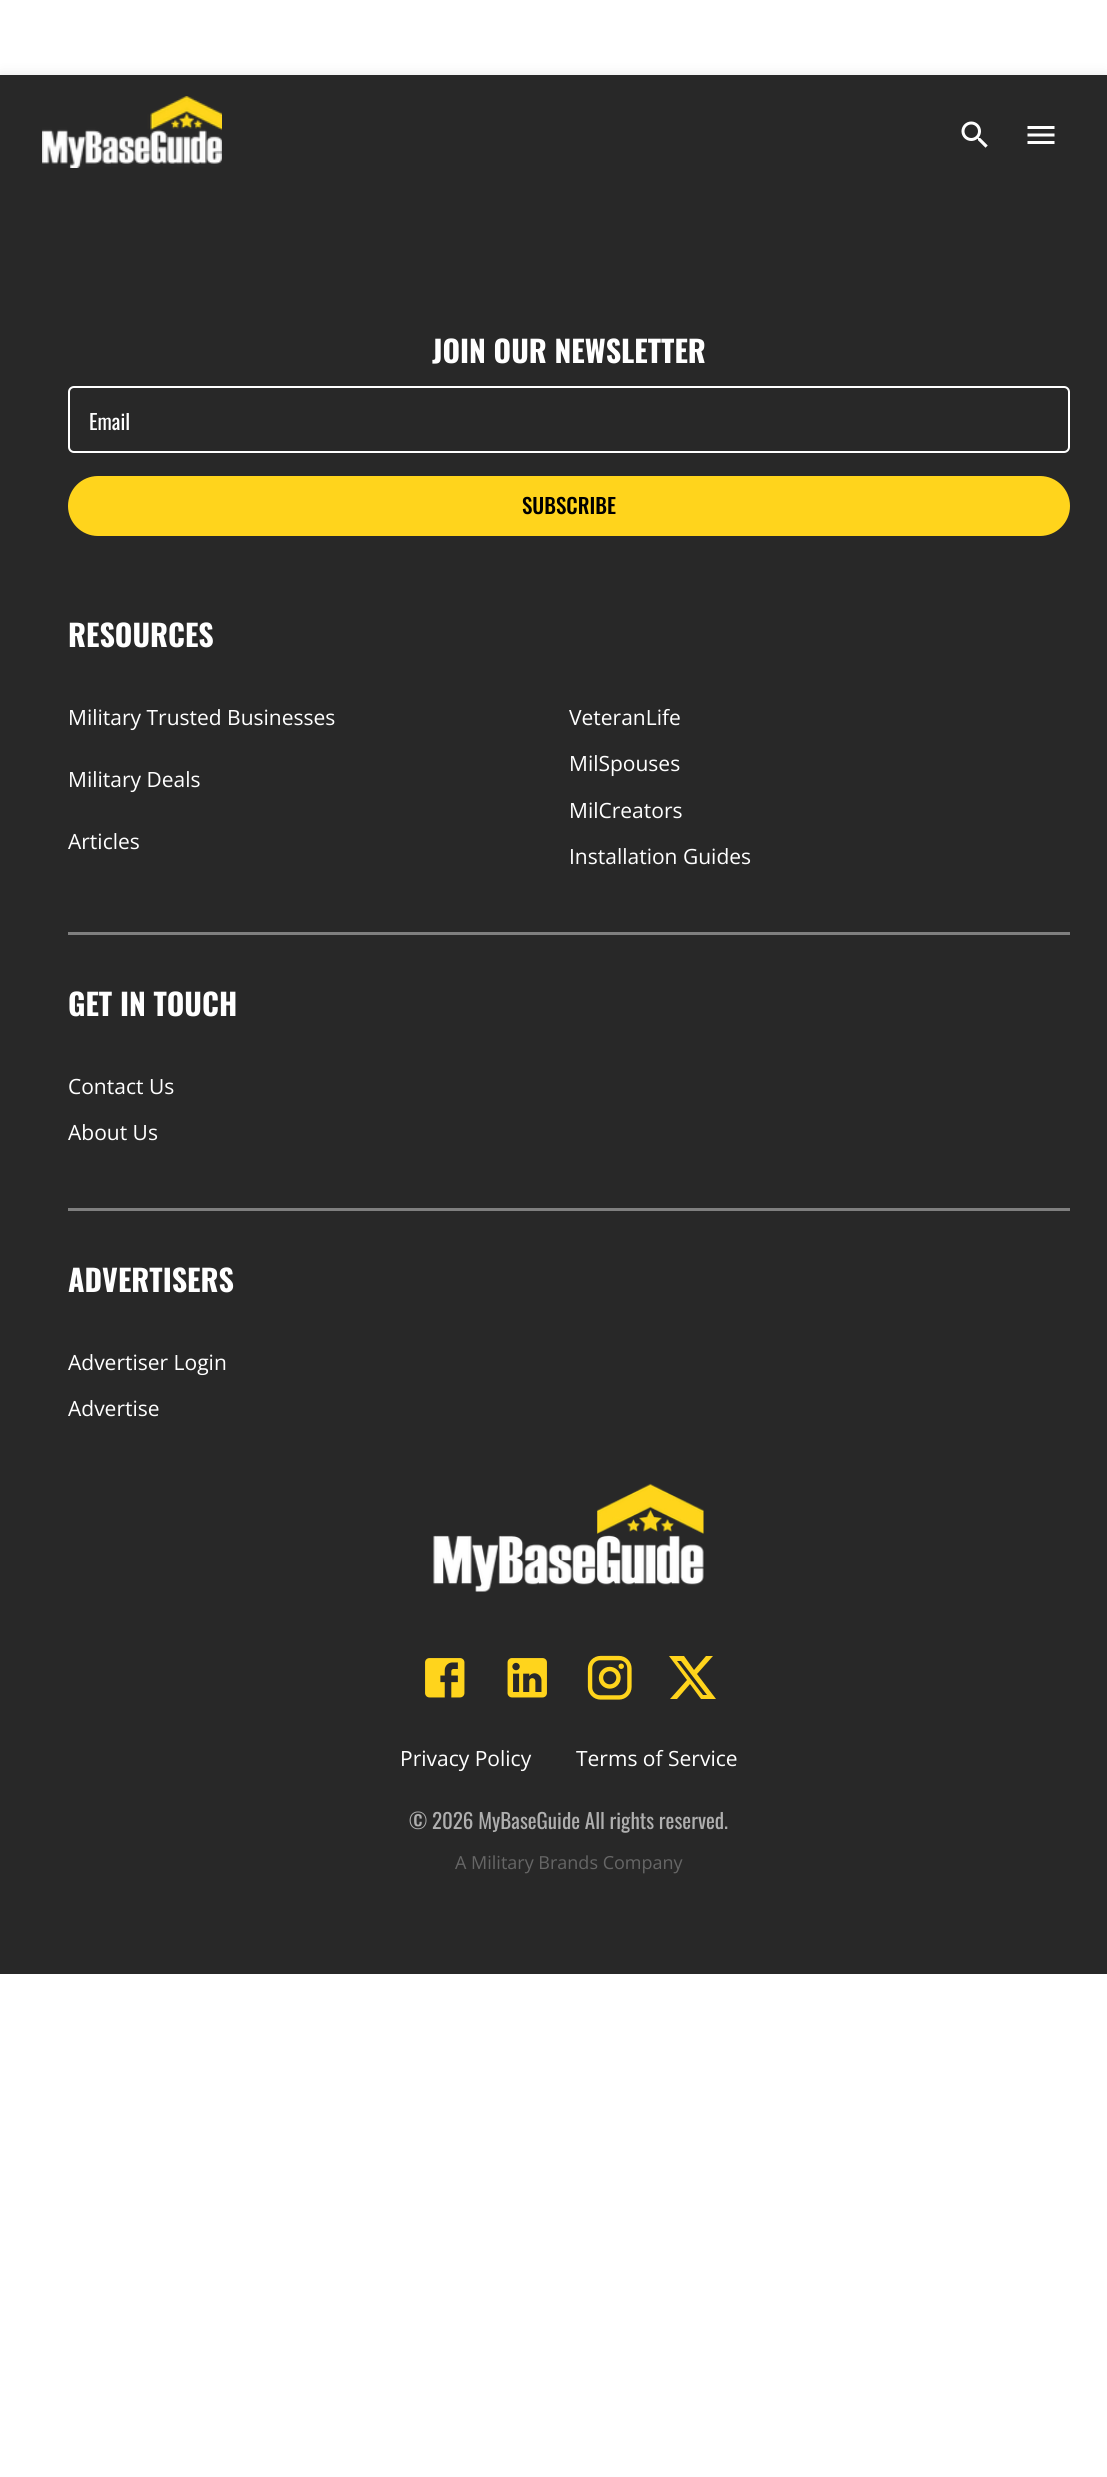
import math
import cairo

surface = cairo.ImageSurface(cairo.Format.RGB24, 1107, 2477)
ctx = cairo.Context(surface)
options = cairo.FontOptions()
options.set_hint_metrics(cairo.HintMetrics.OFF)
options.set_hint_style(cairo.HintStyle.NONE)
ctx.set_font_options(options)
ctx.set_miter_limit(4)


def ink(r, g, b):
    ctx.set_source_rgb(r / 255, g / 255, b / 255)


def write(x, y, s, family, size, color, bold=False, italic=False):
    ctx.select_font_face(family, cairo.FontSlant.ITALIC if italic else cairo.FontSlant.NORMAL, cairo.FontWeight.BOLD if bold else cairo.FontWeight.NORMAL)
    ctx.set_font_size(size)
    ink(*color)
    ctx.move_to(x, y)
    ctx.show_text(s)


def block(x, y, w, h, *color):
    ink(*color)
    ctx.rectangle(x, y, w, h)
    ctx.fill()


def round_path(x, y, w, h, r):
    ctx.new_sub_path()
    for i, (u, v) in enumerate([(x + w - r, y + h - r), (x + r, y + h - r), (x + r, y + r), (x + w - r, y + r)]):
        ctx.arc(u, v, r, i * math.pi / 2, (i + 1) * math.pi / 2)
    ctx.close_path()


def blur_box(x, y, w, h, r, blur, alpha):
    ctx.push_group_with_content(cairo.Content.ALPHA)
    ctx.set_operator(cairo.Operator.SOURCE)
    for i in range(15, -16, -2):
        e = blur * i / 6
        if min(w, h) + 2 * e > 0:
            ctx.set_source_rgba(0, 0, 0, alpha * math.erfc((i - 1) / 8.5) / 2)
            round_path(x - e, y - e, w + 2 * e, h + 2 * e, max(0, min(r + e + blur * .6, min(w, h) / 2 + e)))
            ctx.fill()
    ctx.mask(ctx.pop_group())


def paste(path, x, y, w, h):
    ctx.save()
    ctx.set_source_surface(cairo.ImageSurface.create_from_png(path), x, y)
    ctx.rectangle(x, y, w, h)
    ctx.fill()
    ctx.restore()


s1 = dict(family="Oswald", size=30, color=(255, 255, 255), bold=True)
s2 = dict(family="Oswald", size=21, color=(255, 255, 255))
s3 = dict(family="Oswald Medium", size=21, color=(0, 0, 0))
s4 = dict(family="Open Sans", size=21, color=(255, 255, 255))
s5 = dict(family="Oswald", size=21, color=(175, 175, 175))
s6 = dict(family="Open Sans", size=18, color=(102, 102, 102))

ink(255, 255, 255)
ctx.paint()
ink(0, 0, 0)
blur_box(0, 77, 1107, 120, 0, 7.5, 0.12)
block(0, 75, 1107, 1899, 40, 40, 40)
paste("pic1.png", 42, 96, 180, 72)
paste("pic2.png", 961, 121, 27, 27)
paste("pic3.png", 1027, 126, 28, 18)
write(432, 363, "JOIN OUR NEWSLETTER", **s1)
round_path(69, 387, 1000, 65, 5)
ctx.stroke()
write(89, 430, "Email", **s2)
ink(255, 212, 28)
round_path(69.5, 477.5, 999, 57, 28.5)
ctx.fill_preserve()
ctx.set_line_width(3)
ctx.stroke()
write(522, 514, "SUBSCRIBE", **s3)
write(68, 647, "RESOURCES", **s1)
write(68, 725, "Military Trusted Businesses", **s4)
write(68, 787, "Military Deals", **s4)
write(68, 849, "Articles", **s4)
write(569, 725, "VeteranLife", **s4)
write(569, 771, "MilSpouses", **s4)
write(569, 818, "MilCreators", **s4)
write(569, 864, "Installation Guides", **s4)
block(68, 932, 1002, 3, 127, 127, 127)
write(68, 1016, "GET IN TOUCH", **s1)
write(68, 1094, "Contact Us", **s4)
write(68, 1140, "About Us", **s4)
block(68, 1208, 1002, 3, 127, 127, 127)
write(68, 1292, "ADVERTISERS", **s1)
write(68, 1370, "Advertiser Login", **s4)
write(68, 1416, "Advertise", **s4)
paste("pic4.png", 433, 1483, 271, 109)
paste("pic5.png", 425, 1658, 40, 40)
paste("pic6.png", 507, 1658, 40, 40)
paste("pic7.png", 587, 1655, 45, 45)
ink(255, 212, 28)
ctx.new_path()
ctx.move_to(706, 1656)
ctx.line_to(713, 1656)
ctx.line_to(697, 1674)
ctx.line_to(716, 1699)
ctx.line_to(701, 1699)
ctx.line_to(690, 1684)
ctx.line_to(677, 1699)
ctx.line_to(670, 1699)
ctx.line_to(687, 1680)
ctx.line_to(669, 1656)
ctx.line_to(684, 1656)
ctx.line_to(694, 1670)
ctx.close_path()
ctx.move_to(703, 1695)
ctx.line_to(707, 1695)
ctx.line_to(681, 1661)
ctx.line_to(677, 1661)
ctx.close_path()
ctx.fill()
write(400, 1766, "Privacy Policy", **s4)
write(576, 1766, "Terms of Service", **s4)
write(409, 1829, "© 2026 MyBaseGuide All rights reserved.", **s5)
write(455, 1869, "A Military Brands Company", **s6)
surface.write_to_png("screenshot.png")
